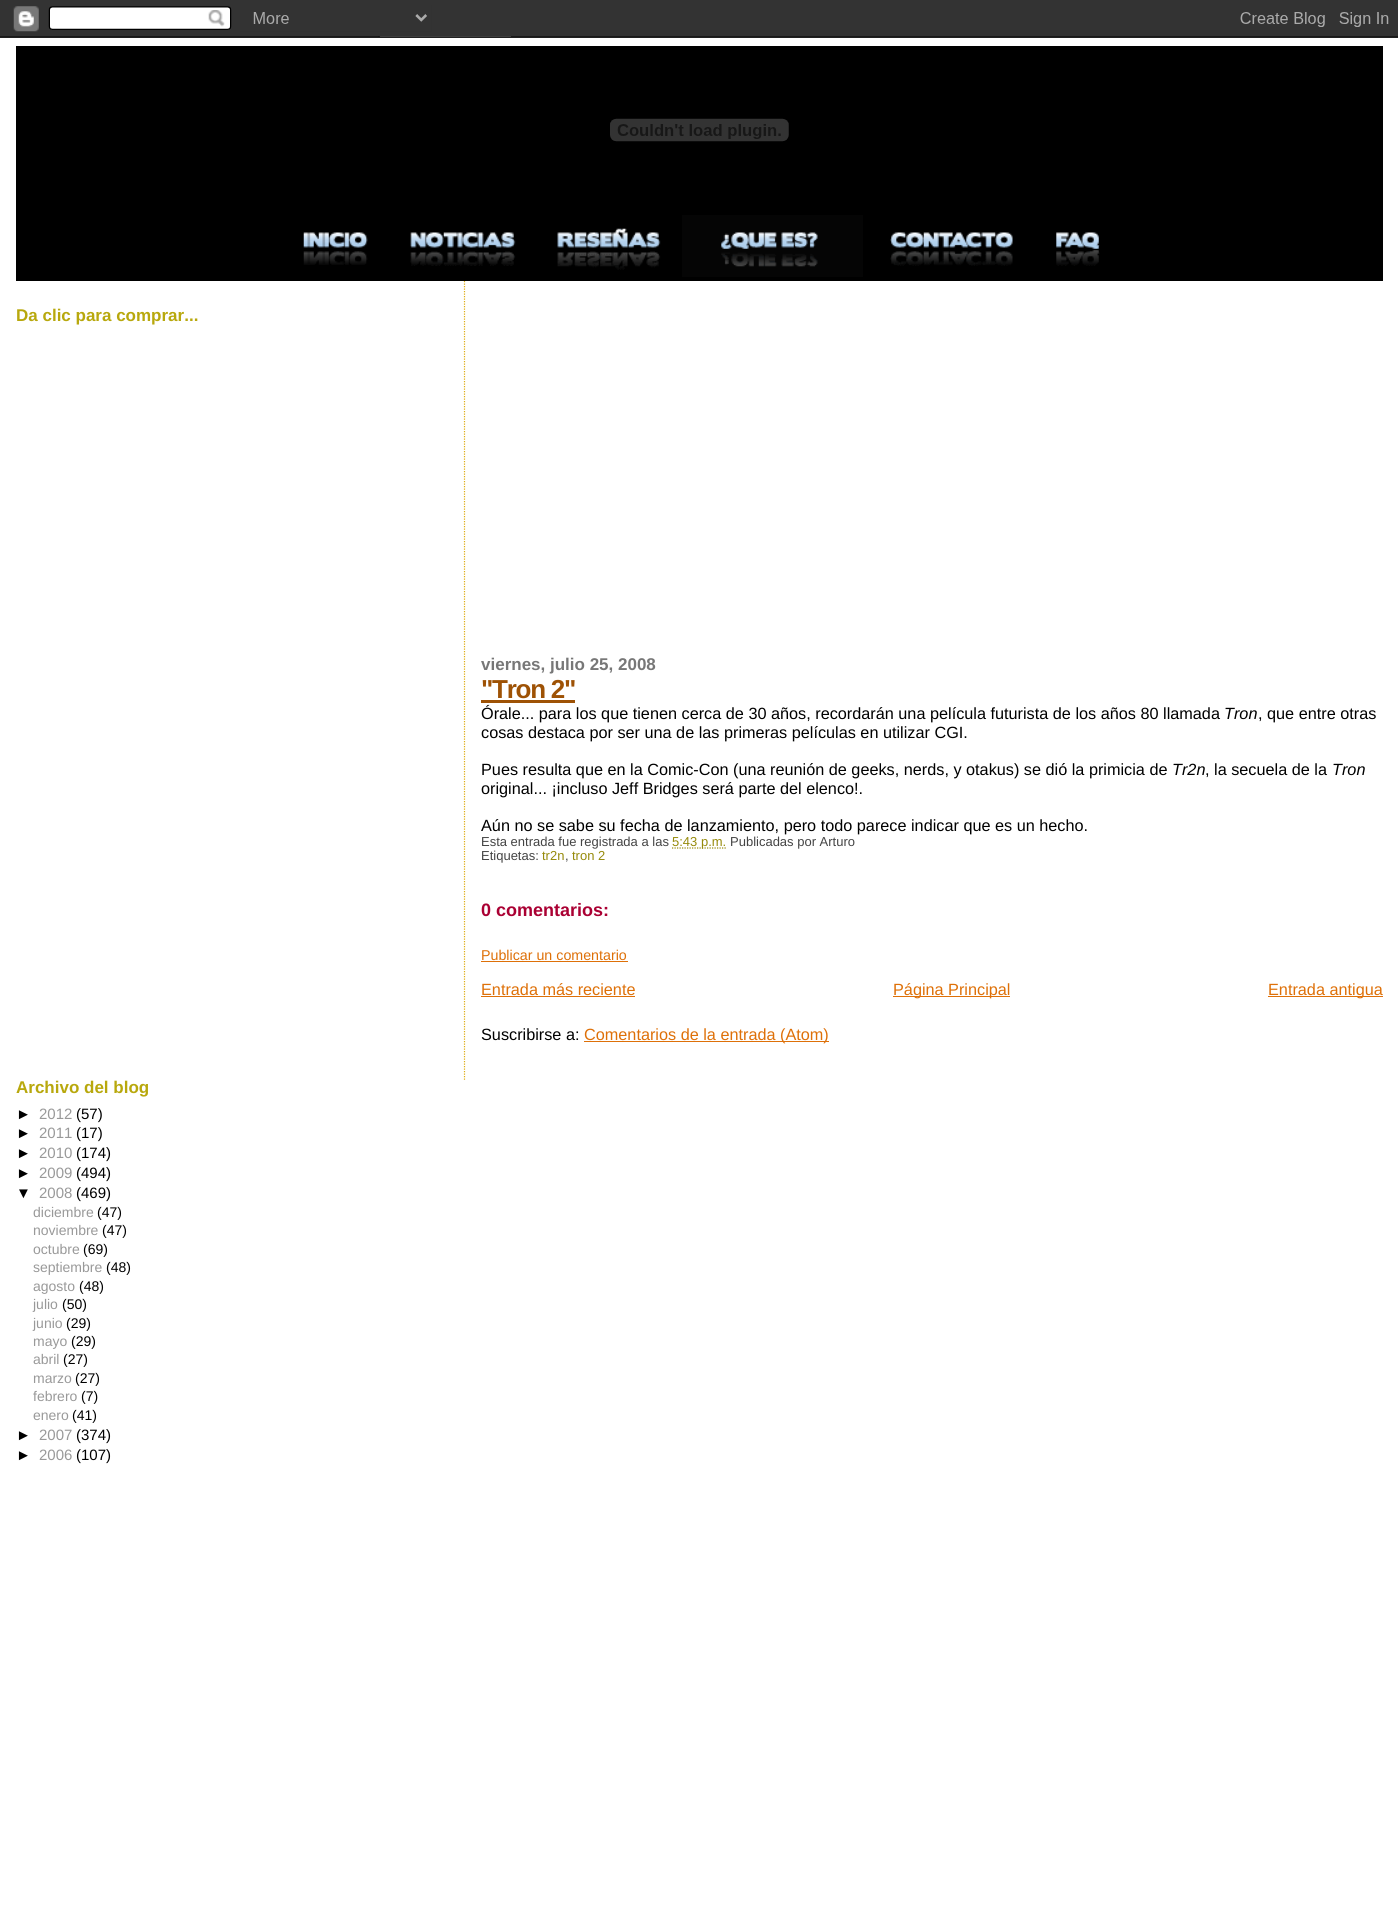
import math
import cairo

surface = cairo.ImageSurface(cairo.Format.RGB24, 1398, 1931)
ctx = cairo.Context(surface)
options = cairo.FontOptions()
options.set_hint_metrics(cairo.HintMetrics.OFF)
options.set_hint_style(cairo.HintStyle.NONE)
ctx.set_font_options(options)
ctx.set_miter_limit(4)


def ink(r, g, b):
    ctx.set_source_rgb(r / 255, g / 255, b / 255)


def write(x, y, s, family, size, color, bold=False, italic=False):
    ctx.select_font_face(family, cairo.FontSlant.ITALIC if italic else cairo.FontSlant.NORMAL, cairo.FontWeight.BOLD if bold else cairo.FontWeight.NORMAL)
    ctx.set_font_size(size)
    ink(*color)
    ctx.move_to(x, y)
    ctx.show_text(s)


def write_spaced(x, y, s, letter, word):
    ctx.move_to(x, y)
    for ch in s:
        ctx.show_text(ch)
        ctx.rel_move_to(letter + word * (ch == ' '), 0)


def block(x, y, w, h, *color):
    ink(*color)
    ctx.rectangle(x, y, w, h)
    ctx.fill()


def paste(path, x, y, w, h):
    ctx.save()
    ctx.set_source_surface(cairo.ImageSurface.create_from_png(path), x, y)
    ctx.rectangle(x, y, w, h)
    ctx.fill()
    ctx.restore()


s1 = dict(family="Liberation Sans", size=17, color=(184, 168, 13), bold=True)
s2 = dict(family="Liberation Sans", size=15, color=(0, 0, 0))
s3 = dict(family="Liberation Sans", size=15, color=(153, 153, 153))
s4 = dict(family="Liberation Sans", size=14, color=(153, 153, 153))
s5 = dict(family="Liberation Sans", size=14, color=(0, 0, 0))
s6 = dict(family="Liberation Sans", size=17, color=(119, 119, 119), bold=True)
s7 = dict(family="Liberation Sans", size=16.25, color=(0, 0, 0))
s8 = dict(family="Liberation Sans", size=16.25, color=(0, 0, 0), italic=True)
s9 = dict(family="Liberation Sans", size=13, color=(68, 68, 68))
s10 = dict(family="Liberation Sans", size=13, color=(150, 138, 10))
s11 = dict(family="Liberation Sans", size=18, color=(170, 0, 51), bold=True)
s12 = dict(family="Liberation Sans", size=14.25, color=(222, 112, 8))
s13 = dict(family="Liberation Sans", size=16.25, color=(222, 112, 8))

ink(255, 255, 255)
ctx.paint()
paste("pic1.png", 0, 0, 1398, 38)
block(16, 46, 1367, 235, 0, 0, 0)
paste("pic2.png", 610, 118, 179, 24)
paste("pic3.png", 303, 232, 65, 33)
paste("pic4.png", 410, 232, 106, 34)
paste("pic5.png", 557, 228, 104, 42)
paste("pic6.png", 682, 215, 181, 62)
paste("pic7.png", 890, 232, 123, 34)
paste("pic8.png", 1056, 232, 44, 34)
write(16, 321, "Da clic para comprar...", **s1)
write(16, 1093, "Archivo del blog", **s1)
write(16, 1119, "►", **s2)
write(39, 1119, "2012", **s3)
write(76, 1119, "(57)", **s2)
write(16, 1138, "►", **s2)
write(39, 1138, "2011", **s3)
write(76, 1138, "(17)", **s2)
write(16, 1158, "►", **s2)
write(39, 1158, "2010", **s3)
write(76, 1158, "(174)", **s2)
write(16, 1178, "►", **s2)
write(39, 1178, "2009", **s3)
write(76, 1178, "(494)", **s2)
write(16, 1198, "▼", **s2)
write(39, 1198, "2008", **s3)
write(76, 1198, "(469)", **s2)
write(33, 1217, "diciembre", **s4)
write(97, 1217, "(47)", **s5)
write(33, 1235, "noviembre", **s4)
write(102, 1235, "(47)", **s5)
write(33, 1254, "octubre", **s4)
write(83, 1254, "(69)", **s5)
write(33, 1272, "septiembre", **s4)
write(106, 1272, "(48)", **s5)
write(33, 1291, "agosto", **s4)
write(79, 1291, "(48)", **s5)
write(33, 1309, "julio", **s4)
write(62, 1309, "(50)", **s5)
write(33, 1328, "junio", **s4)
write(66, 1328, "(29)", **s5)
write(33, 1346, "mayo", **s4)
write(71, 1346, "(29)", **s5)
write(33, 1364, "abril", **s4)
write(63, 1364, "(27)", **s5)
write(33, 1383, "marzo", **s4)
write(75, 1383, "(27)", **s5)
write(33, 1401, "febrero", **s4)
write(81, 1401, "(7)", **s5)
write(33, 1420, "enero", **s4)
write(72, 1420, "(41)", **s5)
write(16, 1440, "►", **s2)
write(39, 1440, "2007", **s3)
write(76, 1440, "(374)", **s2)
write(16, 1460, "►", **s2)
write(39, 1460, "2006", **s3)
write(76, 1460, "(107)", **s2)
ctx.new_path()
ctx.move_to(464.5, 281)
ctx.line_to(464.5, 1081)
ink(224, 173, 18)
ctx.set_line_width(1.2)
ctx.set_dash([1.25, 1.25])
ctx.stroke()
write(481, 670, "viernes, julio 25, 2008", **s6)
ctx.set_font_size(26)
ink(158, 82, 5)
write_spaced(481, 698, "\"Tron 2\"", -1.25, 0)
block(481, 700, 94, 3, 158, 82, 5)
write(481, 719, "Órale... para los que tienen cerca de 30 años, recordarán una película futurista de los años 80 llamada", **s7)
write(1224, 719, "Tron", **s8)
write(1258, 719, ", que entre otras", **s7)
write(481, 738, "cosas destaca por ser una de las primeras películas en utilizar CGI.", **s7)
write(481, 775, "Pues resulta que en la Comic-Con (una reunión de geeks, nerds, y otakus) se dió la primicia de", **s7)
write(1172, 775, "Tr2n", **s8)
write(1205, 775, ", la secuela de la", **s7)
write(1332, 775, "Tron", **s8)
write(481, 794, "original... ¡incluso Jeff Bridges será parte del elenco!.", **s7)
write(481, 831, "Aún no se sabe su fecha de lanzamiento, pero todo parece indicar que es un hecho.", **s7)
write(481, 846, "Esta entrada fue registrada a las", **s9)
ctx.new_path()
ctx.move_to(672, 848)
ctx.line_to(726.5, 848)
ink(150, 138, 10)
ctx.stroke()
write(672, 846, "5:43 p.m.", **s10)
write(730, 846, "Publicadas por Arturo", **s9)
write(481, 860, "Etiquetas:", **s9)
write(542, 860, "tr2n", **s10)
write(565, 860, ",", **s9)
write(572, 860, "tron 2", **s10)
write(481, 916, "0 comentarios:", **s11)
write(481, 960, "Publicar un comentario", **s12)
block(481, 961, 147, 1, 222, 112, 8)
write(481, 995, "Entrada más reciente", **s13)
block(481, 996, 154, 1, 222, 112, 8)
block(893, 996, 117, 1, 222, 112, 8)
write(893, 995, "Página Principal", **s13)
block(1268, 996, 115, 1, 222, 112, 8)
write(1268, 995, "Entrada antigua", **s13)
write(481, 1040, "Suscribirse a:", **s7)
block(584, 1041, 245, 1, 222, 112, 8)
write(584, 1040, "Comentarios de la entrada (Atom)", **s13)
surface.write_to_png("screenshot.png")
